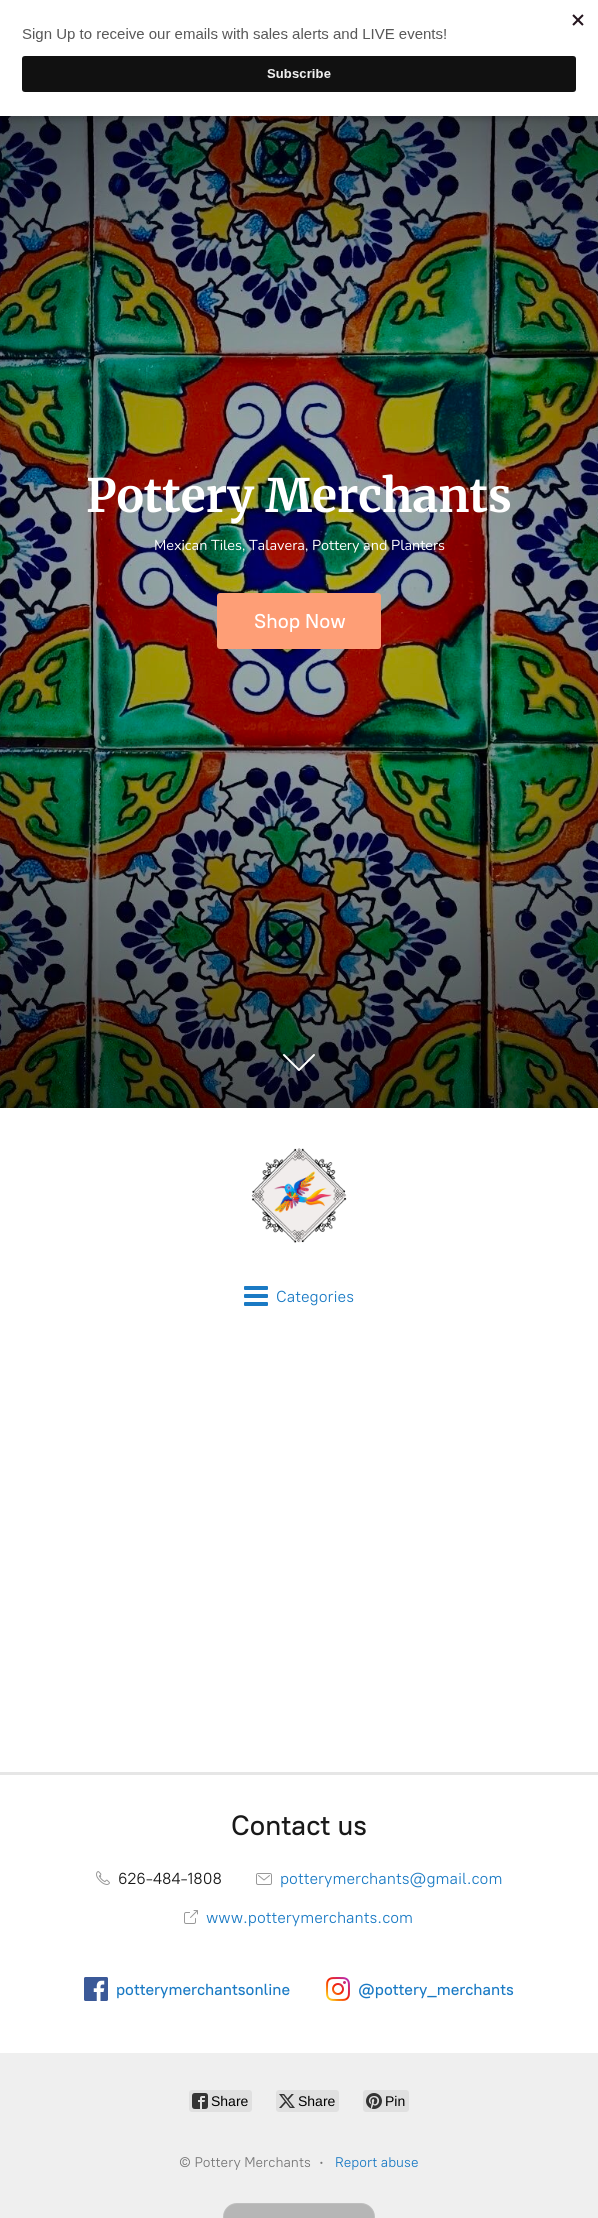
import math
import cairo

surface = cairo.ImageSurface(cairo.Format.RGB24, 598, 2218)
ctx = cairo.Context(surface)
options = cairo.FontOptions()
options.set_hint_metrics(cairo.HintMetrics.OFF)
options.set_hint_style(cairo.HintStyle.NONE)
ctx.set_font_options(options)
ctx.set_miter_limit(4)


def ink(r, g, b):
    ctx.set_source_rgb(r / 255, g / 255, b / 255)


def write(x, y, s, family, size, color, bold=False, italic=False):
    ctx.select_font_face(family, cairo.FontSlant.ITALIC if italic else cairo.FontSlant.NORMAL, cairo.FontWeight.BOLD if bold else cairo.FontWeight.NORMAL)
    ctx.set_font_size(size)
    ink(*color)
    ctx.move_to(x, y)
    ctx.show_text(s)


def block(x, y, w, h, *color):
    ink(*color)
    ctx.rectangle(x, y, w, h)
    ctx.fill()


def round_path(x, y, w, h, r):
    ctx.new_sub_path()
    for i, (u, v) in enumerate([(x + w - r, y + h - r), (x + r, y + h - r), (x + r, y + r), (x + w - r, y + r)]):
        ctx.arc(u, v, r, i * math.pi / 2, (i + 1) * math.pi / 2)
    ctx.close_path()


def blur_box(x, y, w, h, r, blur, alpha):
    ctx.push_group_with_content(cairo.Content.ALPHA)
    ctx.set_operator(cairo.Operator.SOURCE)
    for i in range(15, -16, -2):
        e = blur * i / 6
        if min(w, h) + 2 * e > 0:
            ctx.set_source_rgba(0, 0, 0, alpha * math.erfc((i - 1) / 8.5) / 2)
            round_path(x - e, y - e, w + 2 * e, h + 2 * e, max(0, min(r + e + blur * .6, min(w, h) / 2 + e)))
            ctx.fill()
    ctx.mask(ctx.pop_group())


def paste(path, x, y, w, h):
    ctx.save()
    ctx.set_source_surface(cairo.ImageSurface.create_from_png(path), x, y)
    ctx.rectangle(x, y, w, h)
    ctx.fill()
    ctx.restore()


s1 = dict(family="Merriweather", size=46, color=(255, 255, 255), bold=True)
s2 = dict(family="Nunito", size=14.4, color=(255, 255, 255))
s3 = dict(family="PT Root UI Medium", size=20, color=(255, 255, 255))
s4 = dict(family="PT Root UI", size=16, color=(26, 122, 196))
s5 = dict(family="PT Root UI Medium", size=28, color=(25, 25, 25))
s6 = dict(family="PT Root UI", size=16, color=(25, 25, 25))
s7 = dict(family="PT Root UI Medium", size=16, color=(26, 122, 196))
s8 = dict(family="Liberation Sans", size=14, color=(0, 0, 0))
s9 = dict(family="PT Root UI", size=14, color=(117, 117, 117))
s10 = dict(family="PT Root UI Medium", size=16, color=(117, 117, 117))
s11 = dict(family="PT Root UI", size=14, color=(26, 122, 196))

ink(255, 255, 255)
ctx.paint()
paste("pic2.png", 0, 116, 598, 992)
ink(0, 0, 0)
blur_box(0, 3, 598, 116, 0, 3, 0.2)
block(0, 0, 598, 116, 255, 255, 255)
paste("pic1.png", 22, 14, 562, 78)
write(86, 512, "Pottery Merchants", **s1)
write(154, 550, "Mexican Tiles, Talavera, Pottery and Planters", **s2)
ink(254, 158, 118)
round_path(217, 593, 164, 56, 3)
ctx.fill()
write(254, 628, "Shop Now", **s3)
ctx.new_path()
ctx.move_to(314, 1055)
ctx.line_to(299, 1070)
ctx.line_to(284, 1055)
ctx.set_line_cap(cairo.LineCap.ROUND)
ctx.set_line_join(cairo.LineJoin.ROUND)
ctx.stroke()
paste("pic3.png", 251, 1148, 96, 95)
paste("pic4.png", 244, 1286, 24, 20)
write(276, 1302, "Categories", **s4)
block(0, 1772, 598, 3, 230, 230, 230)
write(231, 1835, "Contact us", **s5)
paste("pic5.png", 96, 1871, 14, 14)
write(118, 1884, "626-484-1808", **s6)
paste("pic6.png", 256, 1873, 16, 12)
write(280, 1884, "potterymerchants@gmail.com", **s4)
paste("pic7.png", 184, 1910, 14, 14)
write(206, 1923, "www.potterymerchants.com", **s4)
paste("pic8.png", 84, 1977, 24, 24)
write(116, 1995, "potterymerchantsonline", **s7)
paste("pic9.png", 326, 1977, 24, 24)
write(358, 1995, "@pottery_merchants", **s7)
block(0, 2053, 598, 165, 239, 239, 239)
ink(224, 224, 224)
round_path(189, 2090, 63, 22, 3)
ctx.fill()
paste("pic10.png", 192, 2093, 16, 16)
write(211, 2106, "Share", **s8)
ink(224, 224, 224)
round_path(276, 2090, 63, 22, 3)
ctx.fill()
paste("pic11.png", 279, 2094, 16, 14)
write(298, 2106, "Share", **s8)
ink(224, 224, 224)
round_path(363, 2090, 46, 22, 3)
ctx.fill()
paste("pic12.png", 366, 2093, 16, 16)
write(385, 2106, "Pin", **s8)
write(179, 2167, "© Pottery Merchants", **s9)
write(319, 2167, "·", **s10)
write(335, 2167, "Report abuse", **s11)
ink(182, 182, 182)
round_path(223, 2203, 152, 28, 14)
ctx.fill()
round_path(223.5, 2203.5, 151, 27, 13.5)
ctx.set_source_rgba(1, 1, 1, 0.12)
ctx.set_line_width(1)
ctx.set_line_cap(cairo.LineCap.BUTT)
ctx.set_line_join(cairo.LineJoin.MITER)
ctx.stroke()
surface.write_to_png("screenshot.png")
